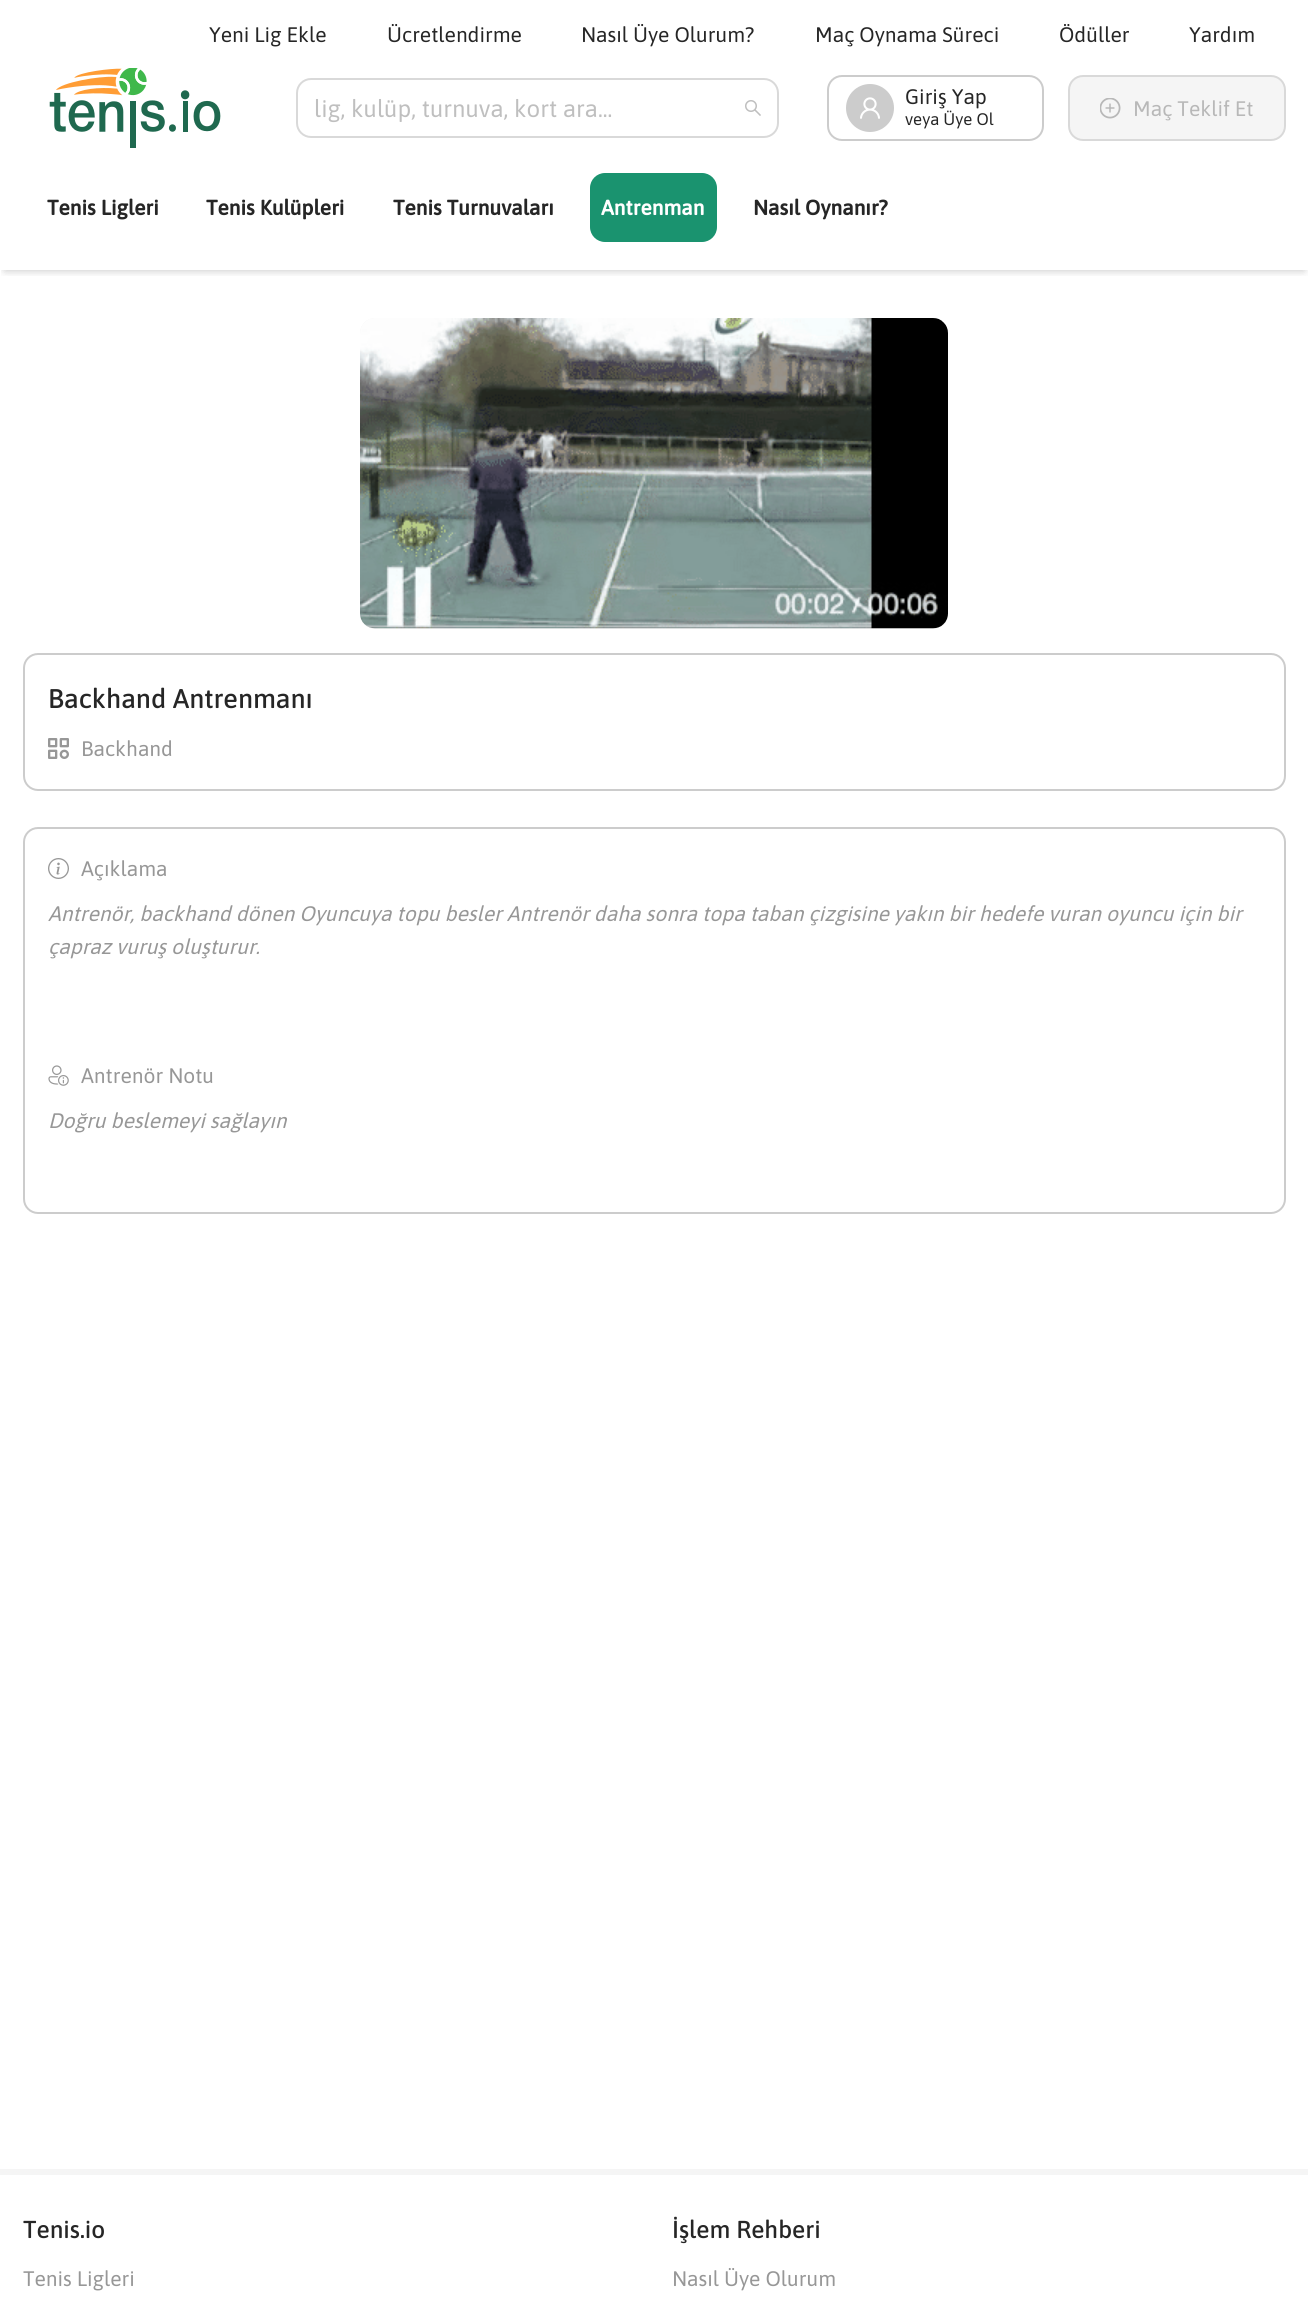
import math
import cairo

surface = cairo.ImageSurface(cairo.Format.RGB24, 1308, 2300)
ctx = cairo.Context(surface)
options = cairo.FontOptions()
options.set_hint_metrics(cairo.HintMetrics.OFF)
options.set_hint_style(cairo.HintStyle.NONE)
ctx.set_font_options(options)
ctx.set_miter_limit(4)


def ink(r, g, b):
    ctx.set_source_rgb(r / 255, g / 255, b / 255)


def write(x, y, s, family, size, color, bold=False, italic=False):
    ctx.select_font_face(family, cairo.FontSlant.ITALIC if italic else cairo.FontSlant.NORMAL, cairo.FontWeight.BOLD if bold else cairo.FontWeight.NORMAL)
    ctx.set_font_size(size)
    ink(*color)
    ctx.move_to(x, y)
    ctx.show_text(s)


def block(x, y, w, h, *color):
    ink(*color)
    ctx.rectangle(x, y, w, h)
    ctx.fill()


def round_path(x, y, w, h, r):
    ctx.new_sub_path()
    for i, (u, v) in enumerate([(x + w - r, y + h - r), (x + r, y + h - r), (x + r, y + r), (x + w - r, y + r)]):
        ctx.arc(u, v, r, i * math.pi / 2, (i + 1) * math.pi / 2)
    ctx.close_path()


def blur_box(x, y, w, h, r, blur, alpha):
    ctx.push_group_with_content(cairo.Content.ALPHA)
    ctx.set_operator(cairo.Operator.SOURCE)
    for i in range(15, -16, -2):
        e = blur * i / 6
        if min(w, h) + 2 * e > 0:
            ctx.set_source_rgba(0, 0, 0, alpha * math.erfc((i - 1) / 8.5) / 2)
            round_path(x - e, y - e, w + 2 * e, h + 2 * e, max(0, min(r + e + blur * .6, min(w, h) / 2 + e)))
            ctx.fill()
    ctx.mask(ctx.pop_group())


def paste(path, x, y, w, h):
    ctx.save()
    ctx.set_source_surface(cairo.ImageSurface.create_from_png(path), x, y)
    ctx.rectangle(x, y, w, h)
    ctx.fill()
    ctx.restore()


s1 = dict(family="Asap", size=21, color=(38, 38, 38))
s2 = dict(family="Asap", size=24, color=(191, 191, 191))
s3 = dict(family="Asap", size=16.75, color=(38, 38, 38))
s4 = dict(family="Asap", size=21, color=(184, 184, 184))
s5 = dict(family="Asap", size=21, color=(38, 38, 38), bold=True)
s6 = dict(family="Asap", size=21, color=(255, 255, 255), bold=True)
s7 = dict(family="Asap Medium", size=27, color=(38, 38, 38))
s8 = dict(family="Asap", size=21, color=(151, 151, 151))
s9 = dict(family="Asap", size=21, color=(151, 151, 151), italic=True)
s10 = dict(family="Asap Medium", size=24.5, color=(38, 38, 38))

ink(255, 255, 255)
ctx.paint()
ctx.save()
ctx.rectangle(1, 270, 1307, 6)
ctx.clip()
ink(0, 0, 0)
blur_box(5, 9, 1299, 261, 0, 4.5, 0.25)
ctx.restore()
write(209, 42, "Yeni Lig Ekle", **s1)
write(387, 42, "Ücretlendirme", **s1)
write(581, 42, "Nasıl Üye Olurum?", **s1)
write(815, 42, "Maç Oynama Süreci", **s1)
write(1059, 42, "Ödüller", **s1)
write(1189, 42, "Yardım", **s1)
paste("pic1.png", 49, 68, 172, 80)
round_path(297, 79, 481, 58, 14)
ink(217, 217, 217)
ctx.stroke()
write(314, 117, "lig, kulüp, turnuva, kort ara...", **s2)
paste("pic2.png", 745, 100, 16, 16)
round_path(828, 76, 215, 64, 14)
ink(204, 204, 204)
ctx.stroke()
ctx.arc(870, 108, 24, 0, 2 * math.pi)
ctx.fill()
paste("pic3.png", 860, 97, 20, 22)
write(905, 104, "Giriş Yap", **s1)
write(905, 125, "veya Üye Ol", **s3)
ink(245, 245, 245)
round_path(1069, 76, 216, 64, 14)
ctx.fill_preserve()
ink(217, 217, 217)
ctx.stroke()
paste("pic4.png", 1100, 98, 21, 21)
write(1133, 116, "Maç Teklif Et", **s4)
write(47, 215, "Tenis Ligleri", **s5)
write(206, 215, "Tenis Kulüpleri", **s5)
write(393, 215, "Tenis Turnuvaları", **s5)
ink(26, 147, 111)
round_path(590, 173, 127, 69, 15)
ctx.fill()
write(601, 215, "Antrenman", **s6)
write(753, 215, "Nasıl Oynanır?", **s5)
ink(245, 245, 245)
round_path(360, 318, 588, 311, 15)
ctx.fill()
paste("pic5.png", 360, 318, 588, 311)
round_path(24, 654, 1261, 136, 14)
ink(204, 204, 204)
ctx.stroke()
write(48, 708, "Backhand Antrenmanı", **s7)
paste("pic6.png", 48, 738, 21, 21)
write(81, 756, "Backhand", **s8)
round_path(24, 828, 1261, 385, 14)
ink(204, 204, 204)
ctx.stroke()
paste("pic7.png", 48, 858, 21, 21)
write(81, 876, "Açıklama", **s8)
write(48, 921, "Antrenör, backhand dönen Oyuncuya topu besler Antrenör daha sonra topa taban çizgisine yakın bir hedefe vuran oyuncu için bir", **s9)
write(48, 954, "çapraz vuruş oluşturur.", **s9)
paste("pic8.png", 48, 1065, 21, 21)
write(81, 1083, "Antrenör Notu", **s8)
write(48, 1128, "Doğru beslemeyi sağlayın", **s9)
block(0, 2169, 1308, 6, 245, 245, 245)
write(23, 2238, "Tenis.io", **s10)
write(23, 2286, "Tenis Ligleri", **s8)
write(672, 2238, "İşlem Rehberi", **s10)
write(672, 2286, "Nasıl Üye Olurum", **s8)
surface.write_to_png("screenshot.png")
